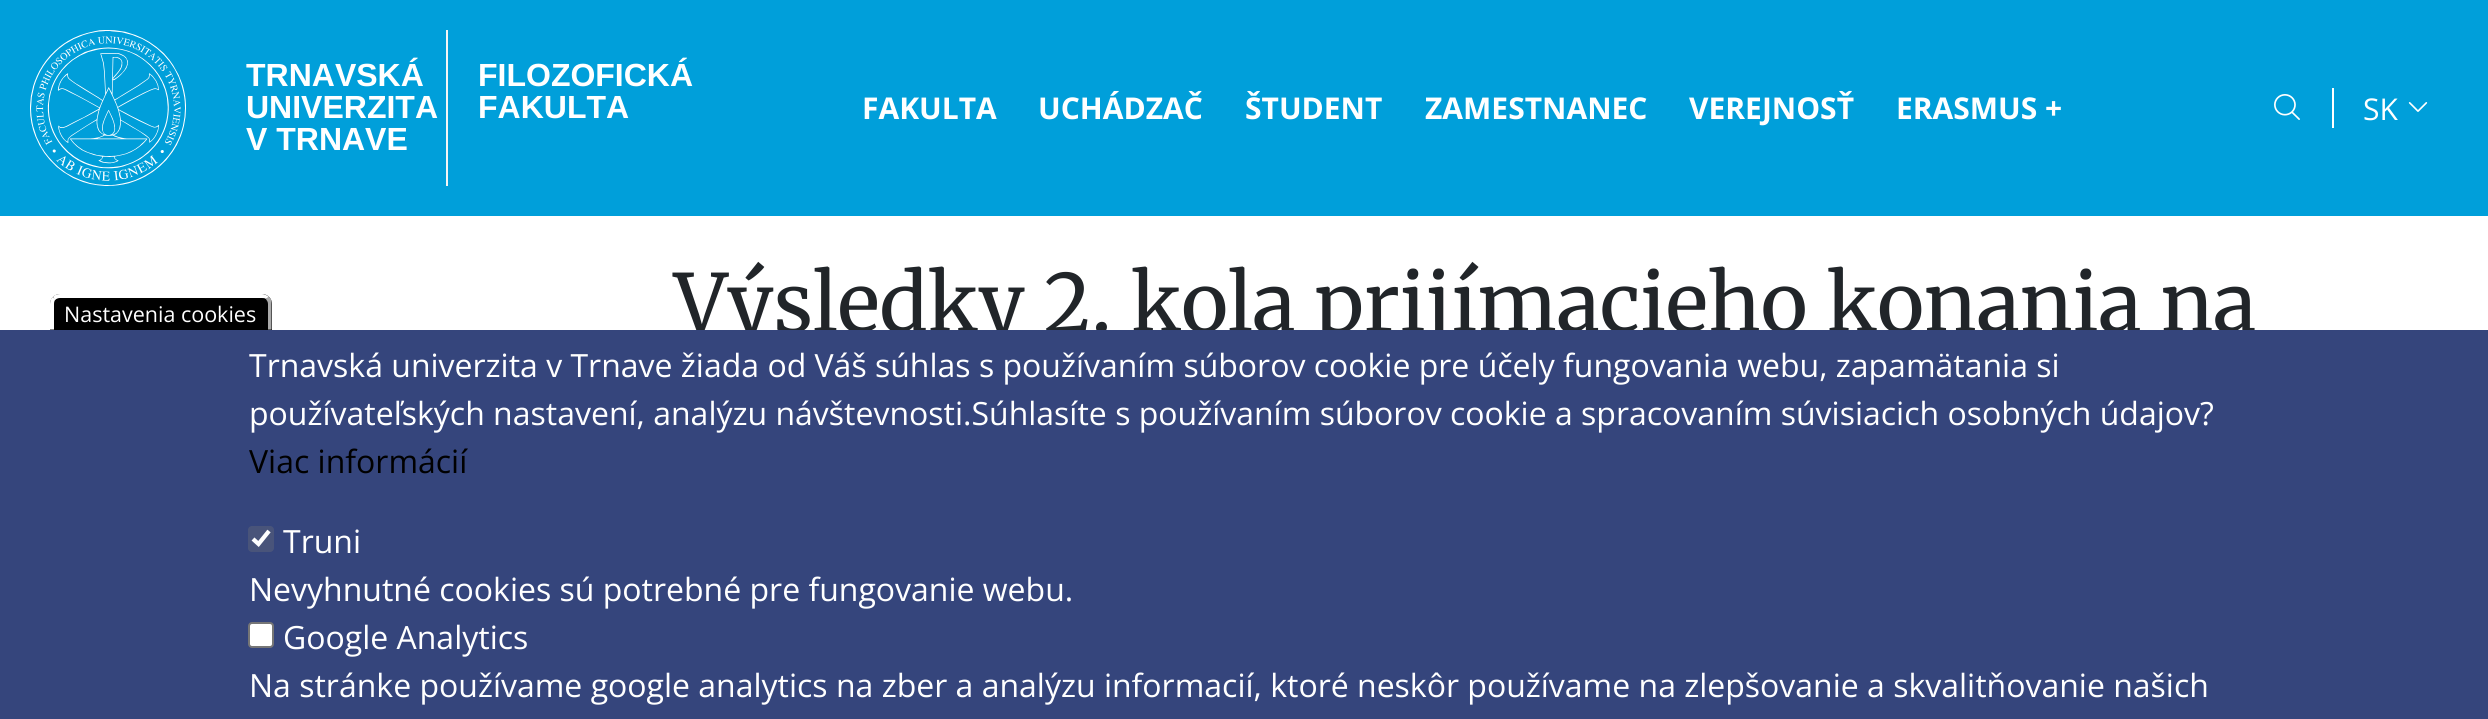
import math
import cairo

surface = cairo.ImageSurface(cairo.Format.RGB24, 2488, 719)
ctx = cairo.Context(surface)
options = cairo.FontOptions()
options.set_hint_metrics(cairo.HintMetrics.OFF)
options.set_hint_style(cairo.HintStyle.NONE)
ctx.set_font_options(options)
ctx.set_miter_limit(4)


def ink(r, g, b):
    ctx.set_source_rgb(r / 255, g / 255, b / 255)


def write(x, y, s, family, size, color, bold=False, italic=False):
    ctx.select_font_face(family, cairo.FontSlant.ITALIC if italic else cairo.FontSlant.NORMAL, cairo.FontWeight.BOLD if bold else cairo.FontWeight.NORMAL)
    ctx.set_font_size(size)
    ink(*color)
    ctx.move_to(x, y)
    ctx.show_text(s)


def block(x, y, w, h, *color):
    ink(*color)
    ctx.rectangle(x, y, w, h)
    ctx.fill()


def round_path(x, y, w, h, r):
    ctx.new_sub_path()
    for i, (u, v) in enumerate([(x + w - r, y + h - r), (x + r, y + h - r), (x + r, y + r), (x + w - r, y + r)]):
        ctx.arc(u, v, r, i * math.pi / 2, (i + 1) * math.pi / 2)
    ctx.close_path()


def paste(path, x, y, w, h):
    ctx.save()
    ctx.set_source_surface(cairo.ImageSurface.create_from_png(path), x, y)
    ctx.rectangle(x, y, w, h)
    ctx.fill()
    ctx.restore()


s1 = dict(family="Liberation Sans", size=32, color=(255, 255, 255), bold=True)
s2 = dict(family="Open Sans", size=30, color=(255, 255, 255), bold=True)
s3 = dict(family="Open Sans", size=30, color=(255, 255, 255))
s4 = dict(family="Merriweather", size=80, color=(33, 37, 41))
s5 = dict(family="Open Sans", size=21.5, color=(255, 255, 255))
s6 = dict(family="Open Sans", size=32, color=(255, 255, 255))
s7 = dict(family="Open Sans", size=32, color=(0, 0, 0))

ink(255, 255, 255)
ctx.paint()
block(0, 0, 2488, 216, 0, 159, 218)
paste("pic1.png", 30, 30, 156, 156)
write(246, 86, "TRNAVSKÁ", **s1)
write(246, 118, "UNIVERZITA", **s1)
write(246, 150, "V TRNAVE", **s1)
block(446, 30, 2, 156, 245, 245, 245)
write(478, 86, "FILOZOFICKÁ", **s1)
write(478, 118, "FAKULTA", **s1)
write(862, 119, "FAKULTA", **s2)
write(1038, 119, "UCHÁDZAČ", **s2)
write(1245, 119, "ŠTUDENT", **s2)
write(1425, 119, "ZAMESTNANEC", **s2)
write(1689, 119, "VEREJNOSŤ", **s2)
write(1896, 119, "ERASMUS +", **s2)
paste("pic2.png", 2274, 94, 26, 26)
block(2332, 88, 2, 40, 255, 255, 255)
write(2363, 120, "SK", **s3)
paste("pic3.png", 2408, 102, 20, 10)
write(674, 332, "Výsledky 2. kola prijímacieho konania na", **s4)
block(0, 330, 2488, 389, 53, 69, 124)
ink(0, 0, 0)
ctx.new_path()
ctx.move_to(60, 294)
ctx.line_to(262, 294)
ctx.curve_to(267.5, 294, 272, 298.5, 272, 304)
ctx.line_to(272, 330)
ctx.line_to(50, 330)
ctx.line_to(50, 304)
ctx.curve_to(50, 298.5, 54.5, 294, 60, 294)
ctx.close_path()
ctx.fill()
ink(255, 255, 255)
ctx.new_path()
ctx.move_to(60, 294)
ctx.line_to(262, 294)
ctx.curve_to(264, 294, 267, 295, 269, 297)
ctx.line_to(266, 299)
ctx.curve_to(265, 298, 263, 298, 262, 298)
ctx.line_to(60, 298)
ctx.curve_to(58, 298, 56, 299, 55, 300)
ctx.line_to(53, 297)
ctx.curve_to(54, 295, 57, 294, 60, 294)
ctx.close_path()
ctx.fill()
ink(170, 170, 170)
ctx.new_path()
ctx.move_to(268.5, 296.5)
ctx.curve_to(270, 297.5, 271, 299, 271.5, 301)
ctx.line_to(271.5, 329.5)
ctx.line_to(268, 329.5)
ctx.line_to(268, 304)
ctx.curve_to(268, 302, 267, 300.5, 266, 299.5)
ctx.close_path()
ctx.fill()
ink(255, 255, 255)
ctx.new_path()
ctx.move_to(54, 329.5)
ctx.line_to(50, 329.5)
ctx.line_to(50, 304)
ctx.curve_to(50, 301, 51, 298.5, 52.5, 297)
ctx.line_to(55.5, 299.5)
ctx.curve_to(54.5, 300.5, 54, 302, 54, 304)
ctx.close_path()
ctx.fill()
write(64, 322, "Nastavenia cookies", **s5)
write(249, 377, "Trnavská univerzita v Trnave žiada od Váš súhlas s používaním súborov cookie pre účely fungovania webu, zapamätania si", **s6)
write(249, 425, "používateľských nastavení, analýzu návštevnosti.Súhlasíte s používaním súborov cookie a spracovaním súvisiacich osobných údajov?", **s6)
write(249, 473, "Viac informácií", **s7)
ink(73, 84, 122)
round_path(248, 526, 26, 26, 4)
ctx.fill()
ctx.new_path()
ctx.move_to(253, 539)
ctx.line_to(258.5, 544)
ctx.line_to(269, 531)
ink(255, 255, 255)
ctx.set_line_width(4.2)
ctx.stroke()
write(283, 553, "Truni", **s6)
write(249, 601, "Nevyhnutné cookies sú potrebné pre fungovanie webu.", **s6)
round_path(249, 623, 24, 24, 3)
ctx.fill_preserve()
ink(118, 118, 118)
ctx.set_line_width(2)
ctx.stroke()
write(283, 649, "Google Analytics", **s6)
write(249, 697, "Na stránke používame google analytics na zber a analýzu informacií, ktoré neskôr používame na zlepšovanie a skvalitňovanie našich", **s6)
surface.write_to_png("screenshot.png")
